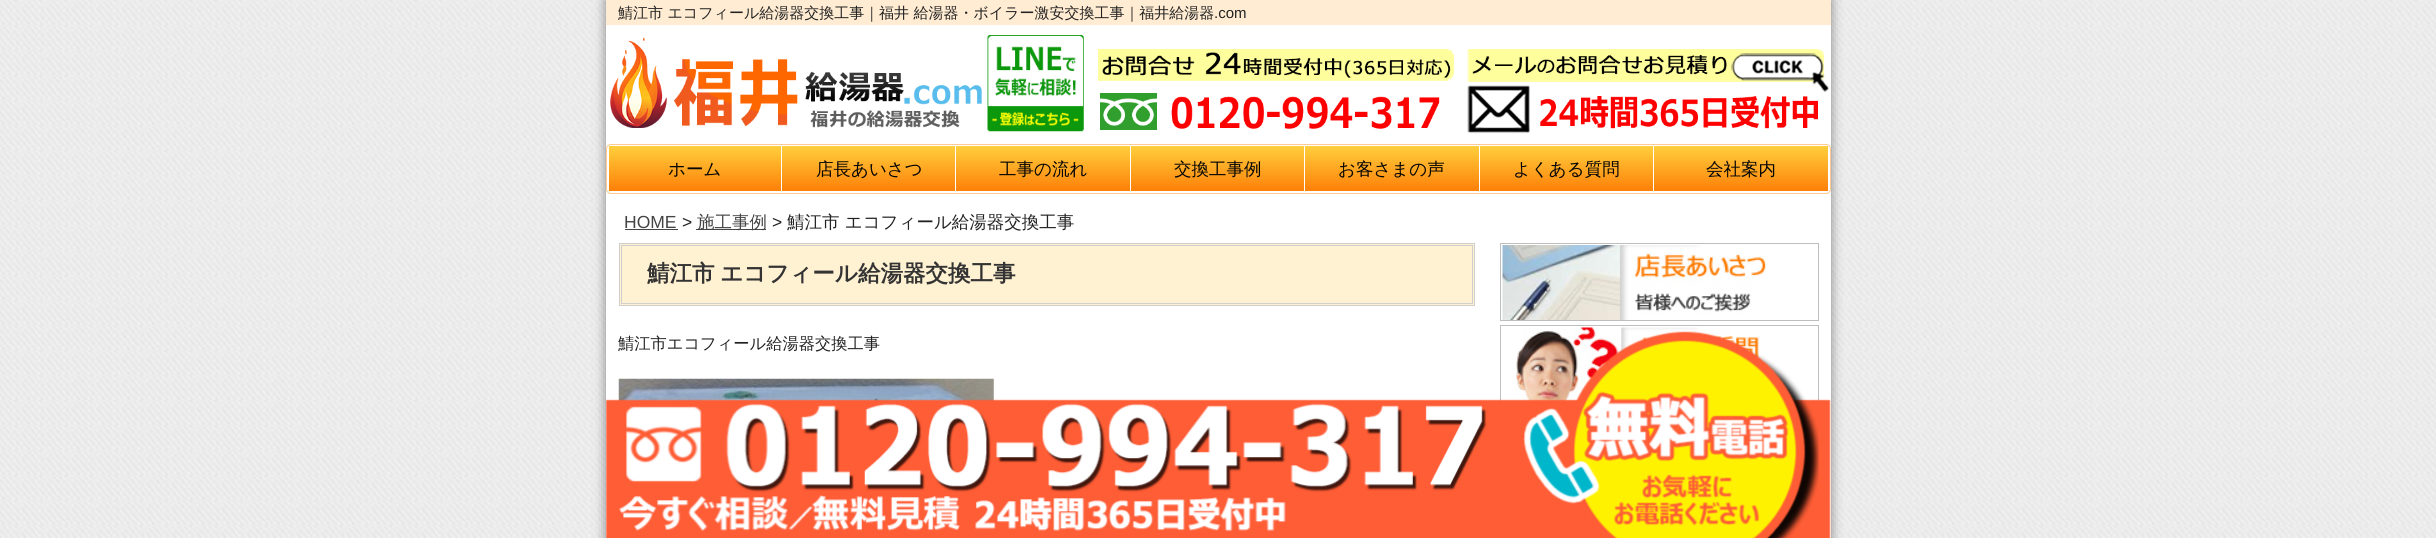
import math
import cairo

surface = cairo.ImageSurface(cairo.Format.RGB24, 2436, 538)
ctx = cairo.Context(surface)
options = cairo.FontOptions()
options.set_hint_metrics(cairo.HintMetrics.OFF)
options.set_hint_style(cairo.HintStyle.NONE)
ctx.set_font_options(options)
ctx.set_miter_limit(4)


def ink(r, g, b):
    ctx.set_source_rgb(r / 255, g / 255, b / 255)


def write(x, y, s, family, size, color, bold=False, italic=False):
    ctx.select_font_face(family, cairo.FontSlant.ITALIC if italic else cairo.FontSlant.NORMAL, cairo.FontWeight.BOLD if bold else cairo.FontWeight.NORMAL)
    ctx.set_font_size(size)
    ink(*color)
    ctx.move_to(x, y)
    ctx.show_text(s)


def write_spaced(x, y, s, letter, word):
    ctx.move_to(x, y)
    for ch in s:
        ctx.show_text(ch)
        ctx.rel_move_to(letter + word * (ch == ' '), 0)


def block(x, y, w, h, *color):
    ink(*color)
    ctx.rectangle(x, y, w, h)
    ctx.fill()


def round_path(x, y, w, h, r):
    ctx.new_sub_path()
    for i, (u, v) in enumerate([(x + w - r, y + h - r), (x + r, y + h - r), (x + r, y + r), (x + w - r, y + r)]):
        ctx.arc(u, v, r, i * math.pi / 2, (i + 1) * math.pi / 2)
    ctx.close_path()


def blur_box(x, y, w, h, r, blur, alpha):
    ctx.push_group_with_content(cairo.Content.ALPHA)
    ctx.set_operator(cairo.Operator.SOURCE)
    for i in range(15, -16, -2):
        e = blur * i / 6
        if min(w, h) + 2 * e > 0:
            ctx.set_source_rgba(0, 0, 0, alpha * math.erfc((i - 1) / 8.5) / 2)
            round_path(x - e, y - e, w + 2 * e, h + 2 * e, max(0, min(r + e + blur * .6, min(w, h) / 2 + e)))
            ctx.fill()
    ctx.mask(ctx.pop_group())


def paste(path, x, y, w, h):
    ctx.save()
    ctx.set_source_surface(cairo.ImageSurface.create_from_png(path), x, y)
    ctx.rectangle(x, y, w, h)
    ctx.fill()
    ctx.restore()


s1 = dict(family="WenQuanYi Zen Hei Medium", size=15, color=(34, 34, 34))
s2 = dict(family="Liberation Sans", size=15, color=(34, 34, 34))
s3 = dict(family="WenQuanYi Zen Hei Medium", size=17.5, color=(5, 5, 5))
s4 = dict(family="Liberation Sans", size=17.5, color=(68, 68, 68))
s5 = dict(family="Liberation Sans", size=17.5, color=(34, 34, 34))
s6 = dict(family="WenQuanYi Zen Hei Medium", size=17.5, color=(68, 68, 68))
s7 = dict(family="WenQuanYi Zen Hei Medium", size=17.5, color=(34, 34, 34))
s8 = dict(family="WenQuanYi Zen Hei Medium", size=16.25, color=(34, 34, 34))

ink(255, 255, 255)
ctx.paint()
paste("pic1.png", 0, 0, 2436, 538)
ink(129, 129, 129)
blur_box(606, 0, 1225, 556, 0, 6, 1)
block(606, 25, 1225, 513, 255, 255, 255)
block(606, 0, 1225, 25, 255, 236, 210)
write(618, 18, "鯖江市 エコフィール給湯器交換工事｜福井 給湯器・ボイラー激安交換工事｜福井給湯器", **s1)
write(1214, 18, ".com", **s2)
paste("pic2.png", 610, 37, 372, 91)
paste("pic3.png", 987, 35, 97, 97)
paste("pic4.png", 1098, 49, 357, 81)
paste("pic5.png", 1467, 49, 362, 85)
round_path(606.5, 144.5, 1224, 49, 4.5)
ink(255, 201, 143)
ctx.set_line_width(1)
ctx.stroke()
gradient = cairo.LinearGradient(695, 146, 695, 191)
gradient.add_color_stop_rgba(0, 1, 0.812, 0.239, 1)
gradient.add_color_stop_rgba(1, 0.996, 0.502, 0.031, 1)
ctx.set_source(gradient)
ctx.rectangle(609, 146, 174, 45)
ctx.fill()
block(781, 146, 1, 45, 255, 255, 255)
write(668, 175, "ホーム", **s3)
gradient = cairo.LinearGradient(869, 146, 869, 191)
gradient.add_color_stop_rgba(0, 1, 0.812, 0.239, 1)
gradient.add_color_stop_rgba(1, 0.996, 0.502, 0.031, 1)
ctx.set_source(gradient)
ctx.rectangle(783, 146, 172, 45)
ctx.fill()
write(816, 175, "店長あいさつ", **s3)
gradient = cairo.LinearGradient(1043, 146, 1043, 191)
gradient.add_color_stop_rgba(0, 1, 0.812, 0.239, 1)
gradient.add_color_stop_rgba(1, 0.996, 0.502, 0.031, 1)
ctx.set_source(gradient)
ctx.rectangle(956, 146, 174, 45)
ctx.fill()
write(999, 175, "工事の流れ", **s3)
gradient = cairo.LinearGradient(1218, 146, 1218, 191)
gradient.add_color_stop_rgba(0, 1, 0.812, 0.239, 1)
gradient.add_color_stop_rgba(1, 0.996, 0.502, 0.031, 1)
ctx.set_source(gradient)
ctx.rectangle(1131, 146, 173, 45)
ctx.fill()
write(1174, 175, "交換工事例", **s3)
gradient = cairo.LinearGradient(1392, 146, 1392, 191)
gradient.add_color_stop_rgba(0, 1, 0.812, 0.239, 1)
gradient.add_color_stop_rgba(1, 0.996, 0.502, 0.031, 1)
ctx.set_source(gradient)
ctx.rectangle(1305, 146, 174, 45)
ctx.fill()
write(1338, 175, "お客さまの声", **s3)
gradient = cairo.LinearGradient(1566, 146, 1566, 191)
gradient.add_color_stop_rgba(0, 1, 0.812, 0.239, 1)
gradient.add_color_stop_rgba(1, 0.996, 0.502, 0.031, 1)
ctx.set_source(gradient)
ctx.rectangle(1480, 146, 173, 45)
ctx.fill()
write(1513, 175, "よくある質問", **s3)
gradient = cairo.LinearGradient(1741, 146, 1741, 191)
gradient.add_color_stop_rgba(0, 1, 0.812, 0.239, 1)
gradient.add_color_stop_rgba(1, 0.996, 0.502, 0.031, 1)
ctx.set_source(gradient)
ctx.rectangle(1654, 146, 174, 45)
ctx.fill()
write(1706, 175, "会社案内", **s3)
write(624, 228, "HOME", **s4)
block(625, 229, 53, 1, 68, 68, 68)
write(682, 228, ">", **s5)
block(696, 229, 70, 1, 68, 68, 68)
write(697, 228, "施工事例", **s6)
write(772, 228, ">", **s5)
write(787, 228, "鯖江市 エコフィール給湯器交換工事", **s7)
ink(255, 242, 210)
ctx.rectangle(619.5, 243.5, 855, 62)
ctx.fill_preserve()
ink(207, 206, 205)
ctx.stroke()
ctx.rectangle(621.5, 245.5, 851, 58)
ctx.stroke()
ctx.select_font_face("WenQuanYi Zen Hei", cairo.FontSlant.NORMAL, cairo.FontWeight.BOLD)
ctx.set_font_size(22.5)
ink(51, 51, 51)
write_spaced(647, 281, "鯖江市 エコフィール給湯器交換工事", 0, -1)
write(618, 349, "鯖江市エコフィール給湯器交換工事", **s8)
paste("pic6.png", 618, 378, 376, 23)
ctx.rectangle(1500.5, 243.5, 318, 77)
ink(190, 190, 190)
ctx.stroke()
paste("pic7.png", 1502, 245, 264, 75)
ctx.rectangle(1500.5, 325.5, 318, 78)
ctx.stroke()
paste("pic8.png", 1516, 327, 243, 74)
paste("pic10.png", 606, 399, 1225, 139)
paste("pic9.png", 1523, 331, 296, 207)
surface.write_to_png("screenshot.png")
